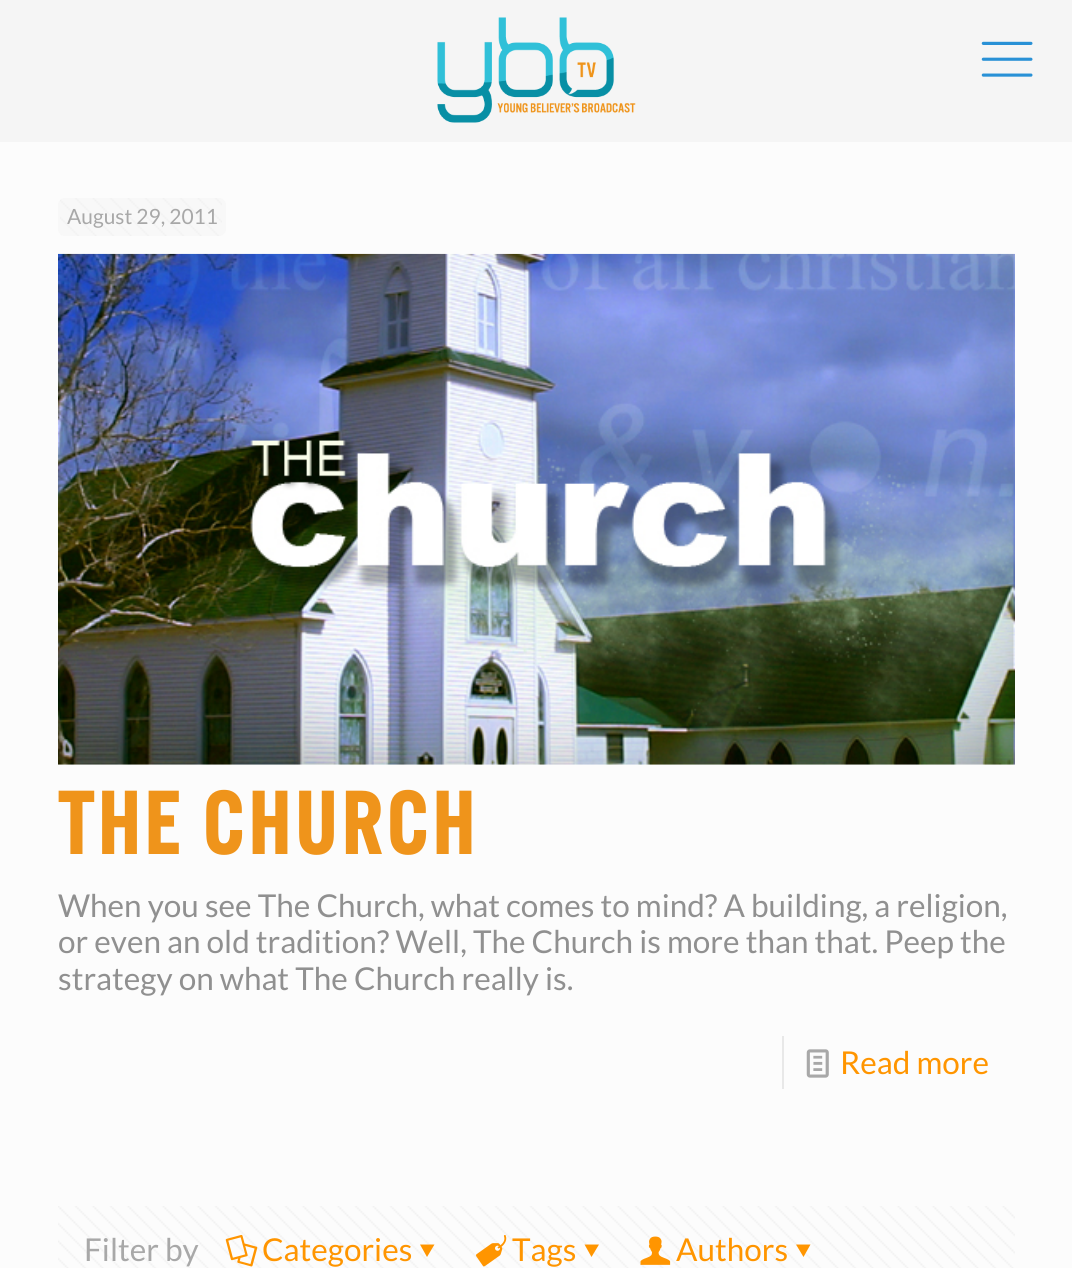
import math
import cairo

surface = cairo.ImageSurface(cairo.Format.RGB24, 1072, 1268)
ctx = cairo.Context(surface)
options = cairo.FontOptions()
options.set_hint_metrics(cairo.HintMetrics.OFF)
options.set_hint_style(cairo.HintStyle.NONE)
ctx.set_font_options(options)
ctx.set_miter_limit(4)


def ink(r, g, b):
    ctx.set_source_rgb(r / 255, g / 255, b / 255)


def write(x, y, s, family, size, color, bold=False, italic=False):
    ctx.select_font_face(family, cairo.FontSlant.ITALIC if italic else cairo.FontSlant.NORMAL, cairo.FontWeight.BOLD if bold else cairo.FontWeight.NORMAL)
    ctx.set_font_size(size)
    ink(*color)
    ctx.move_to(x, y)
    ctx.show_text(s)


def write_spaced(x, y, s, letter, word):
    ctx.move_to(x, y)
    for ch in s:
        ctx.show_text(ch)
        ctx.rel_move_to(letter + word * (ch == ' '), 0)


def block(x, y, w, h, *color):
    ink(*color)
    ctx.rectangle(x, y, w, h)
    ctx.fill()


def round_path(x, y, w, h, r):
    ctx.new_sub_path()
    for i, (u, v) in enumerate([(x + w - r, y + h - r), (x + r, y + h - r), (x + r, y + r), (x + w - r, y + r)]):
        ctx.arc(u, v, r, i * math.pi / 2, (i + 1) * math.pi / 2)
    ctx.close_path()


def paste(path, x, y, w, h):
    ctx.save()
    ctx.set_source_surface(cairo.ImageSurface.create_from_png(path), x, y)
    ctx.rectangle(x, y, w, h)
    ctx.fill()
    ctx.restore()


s1 = dict(family="Lato", size=21, color=(168, 168, 168))
s2 = dict(family="Lato", size=31.5, color=(144, 144, 144))
s3 = dict(family="Lato", size=31.5, color=(255, 149, 0))
s4 = dict(family="Lato", size=31.5, color=(168, 168, 168))

ink(252, 252, 252)
ctx.paint()
block(0, 0, 1072, 142, 245, 245, 245)
paste("pic1.png", 437, 17, 199, 106)
paste("pic2.png", 981, 41, 52, 36)
ink(248, 248, 248)
round_path(58, 198, 168, 38, 7)
ctx.fill()
paste("pic3.png", 60, 198, 162, 38)
write(67, 224, "August 29, 2011", **s1)
paste("pic4.png", 58, 253, 957, 512)
ctx.select_font_face("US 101", cairo.FontSlant.NORMAL, cairo.FontWeight.BOLD)
ctx.set_font_size(91)
ink(239, 148, 27)
write_spaced(58, 854, "The Church", 5.25, 0)
write(58, 917, "When you see The Church, what comes to mind? A building, a religion,", **s2)
write(58, 953, "or even an old tradition? Well, The Church is more than that. Peep the", **s2)
write(58, 990, "strategy on what The Church really is.", **s2)
block(782, 1036, 2, 53, 232, 232, 232)
paste("pic5.png", 806, 1049, 23, 29)
write(840, 1074, "Read more", **s3)
paste("pic6.png", 58, 1206, 957, 62)
write(84, 1261, "Filter by", **s4)
paste("pic7.png", 225, 1234, 33, 33)
write(262, 1261, "Categories", **s3)
ctx.new_path()
ctx.move_to(434.5, 1244.5)
ctx.line_to(427, 1257)
ctx.line_to(420, 1244.5)
ctx.close_path()
ctx.fill()
paste("pic8.png", 476, 1235, 31, 32)
write(512, 1261, "Tags", **s3)
ctx.new_path()
ctx.move_to(599, 1244.5)
ctx.line_to(591.5, 1257)
ctx.line_to(584.5, 1244.5)
ctx.close_path()
ctx.fill()
paste("pic9.png", 640, 1236, 31, 29)
write(676, 1261, "Authors", **s3)
ctx.new_path()
ctx.move_to(810.5, 1244.5)
ctx.line_to(803.5, 1257)
ctx.line_to(796, 1244.5)
ctx.close_path()
ctx.fill()
surface.write_to_png("screenshot.png")
